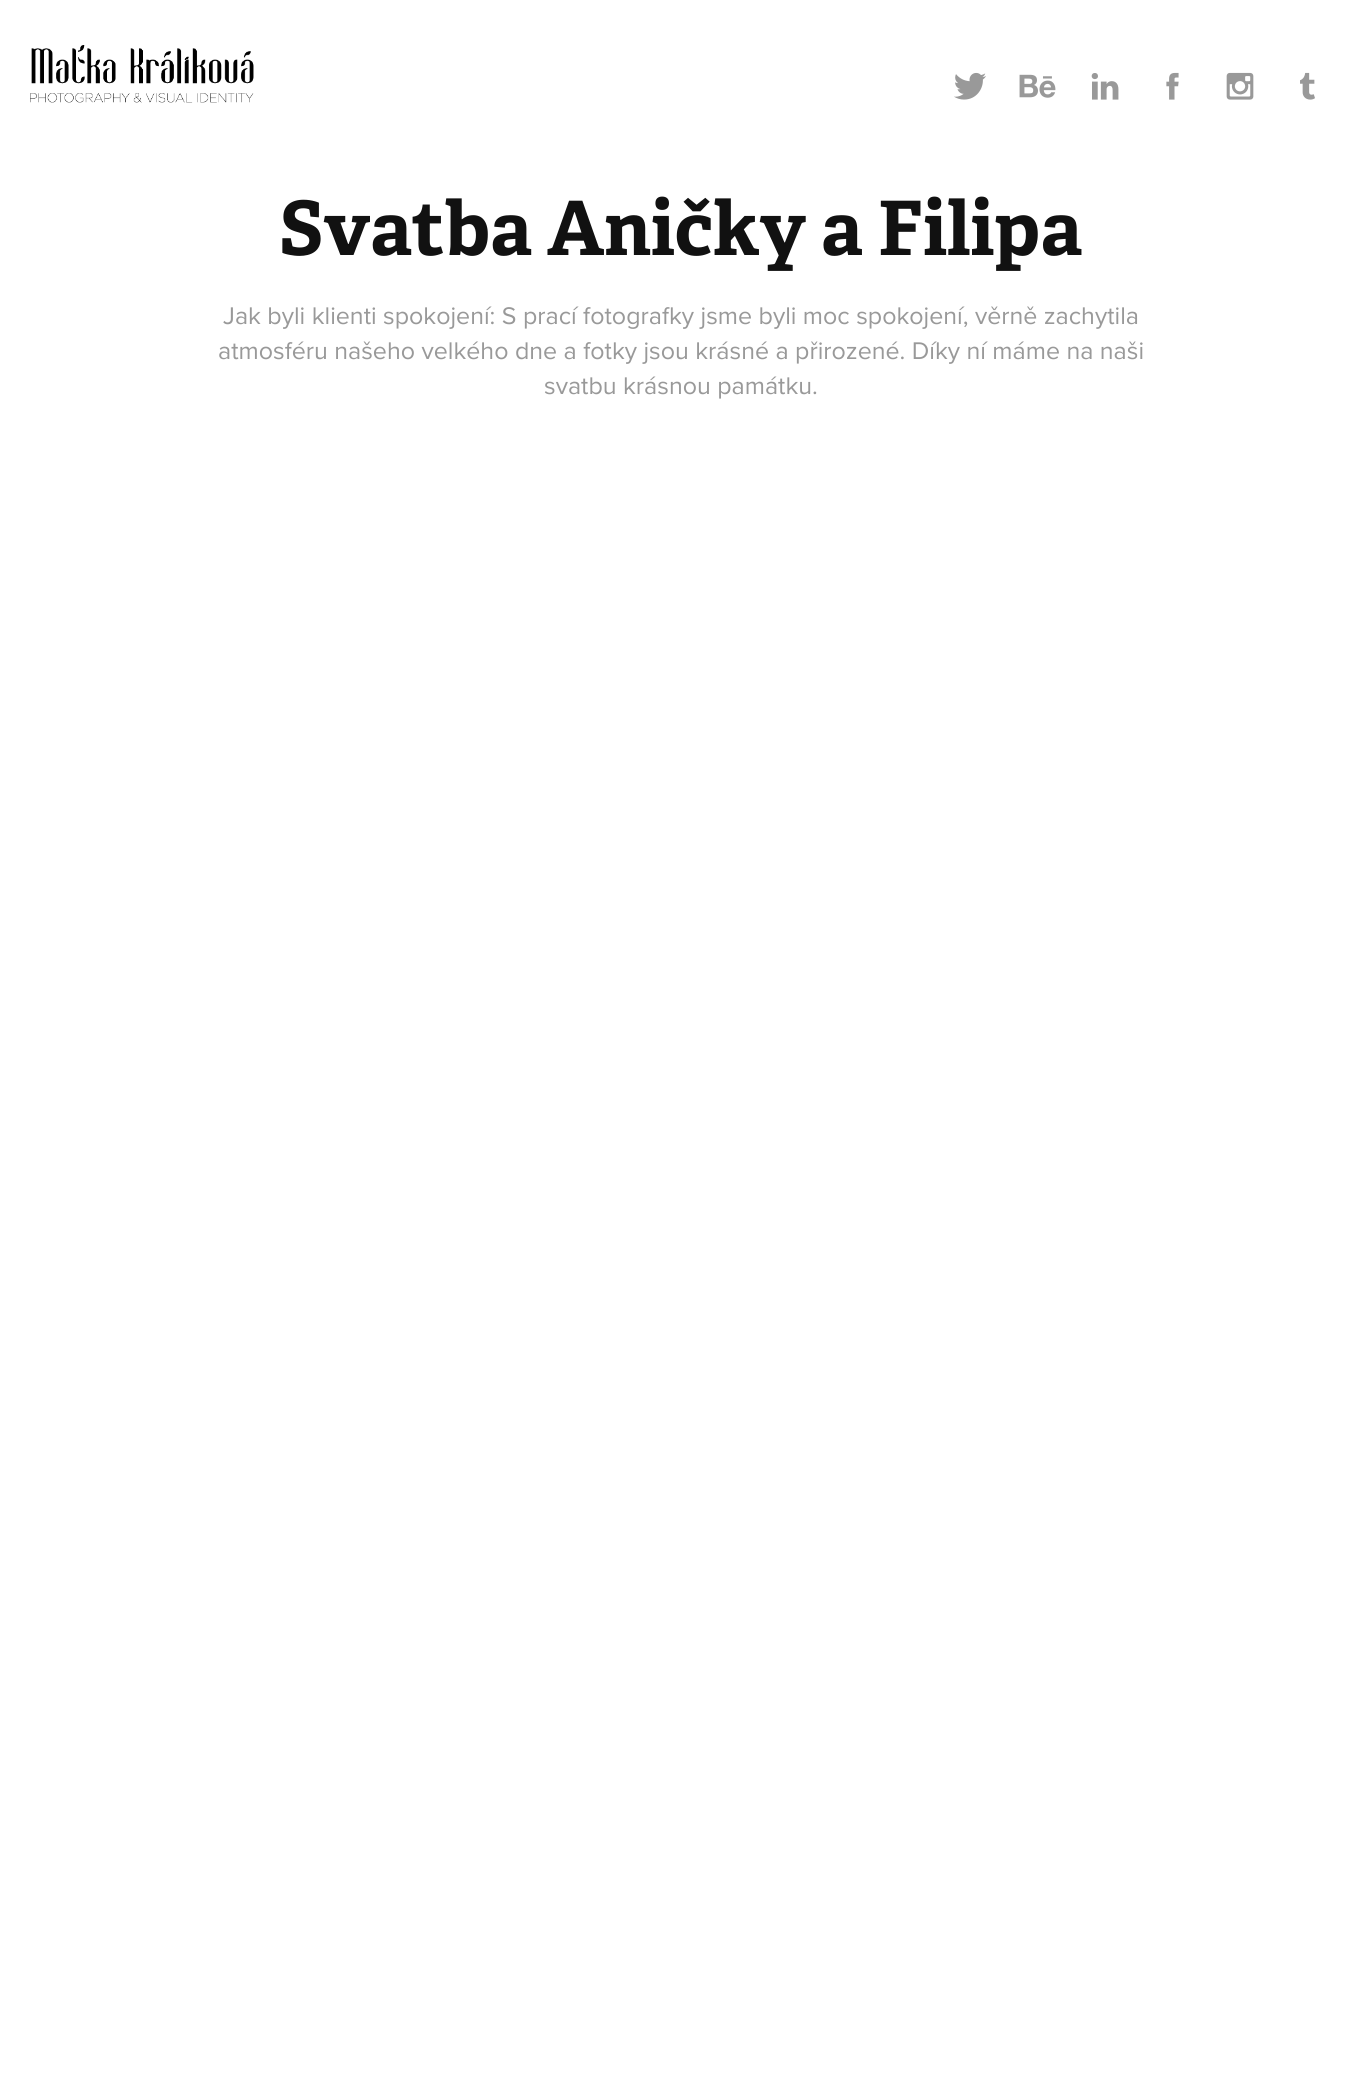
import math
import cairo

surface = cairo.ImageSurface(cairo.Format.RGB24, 1361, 2082)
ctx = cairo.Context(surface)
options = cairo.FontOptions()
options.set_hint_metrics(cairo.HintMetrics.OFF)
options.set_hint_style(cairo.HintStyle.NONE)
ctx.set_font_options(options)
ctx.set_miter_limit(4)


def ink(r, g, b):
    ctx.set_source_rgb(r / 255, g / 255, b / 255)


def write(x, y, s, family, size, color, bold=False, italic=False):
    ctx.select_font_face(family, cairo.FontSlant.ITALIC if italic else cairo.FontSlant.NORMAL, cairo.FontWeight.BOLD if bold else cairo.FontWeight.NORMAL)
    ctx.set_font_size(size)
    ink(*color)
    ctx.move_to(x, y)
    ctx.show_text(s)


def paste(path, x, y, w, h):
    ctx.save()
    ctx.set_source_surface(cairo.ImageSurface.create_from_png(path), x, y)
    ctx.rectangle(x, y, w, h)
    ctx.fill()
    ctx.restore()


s1 = dict(family="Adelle", size=75, color=(17, 17, 17), bold=True)
s2 = dict(family="Proxima Nova", size=25, color=(153, 153, 153))

ink(255, 255, 255)
ctx.paint()
paste("pic1.png", 30, 45, 224, 58)
paste("pic2.png", 954, 72, 32, 28)
paste("pic3.png", 1019, 74, 37, 24)
paste("pic4.png", 1091, 73, 28, 27)
paste("pic5.png", 1166, 72, 13, 28)
paste("pic6.png", 1226, 72, 28, 28)
paste("pic7.png", 1300, 72, 15, 28)
write(279, 255, "Svatba Aničky a Filipa", **s1)
write(223, 324, "Jak byli klienti spokojení: S prací fotografky jsme byli moc spokojení, věrně zachytila", **s2)
write(218, 359, "atmosféru našeho velkého dne a fotky jsou krásné a přirozené. Díky ní máme na naši", **s2)
write(544, 394, "svatbu krásnou památku.", **s2)
surface.write_to_png("screenshot.png")
